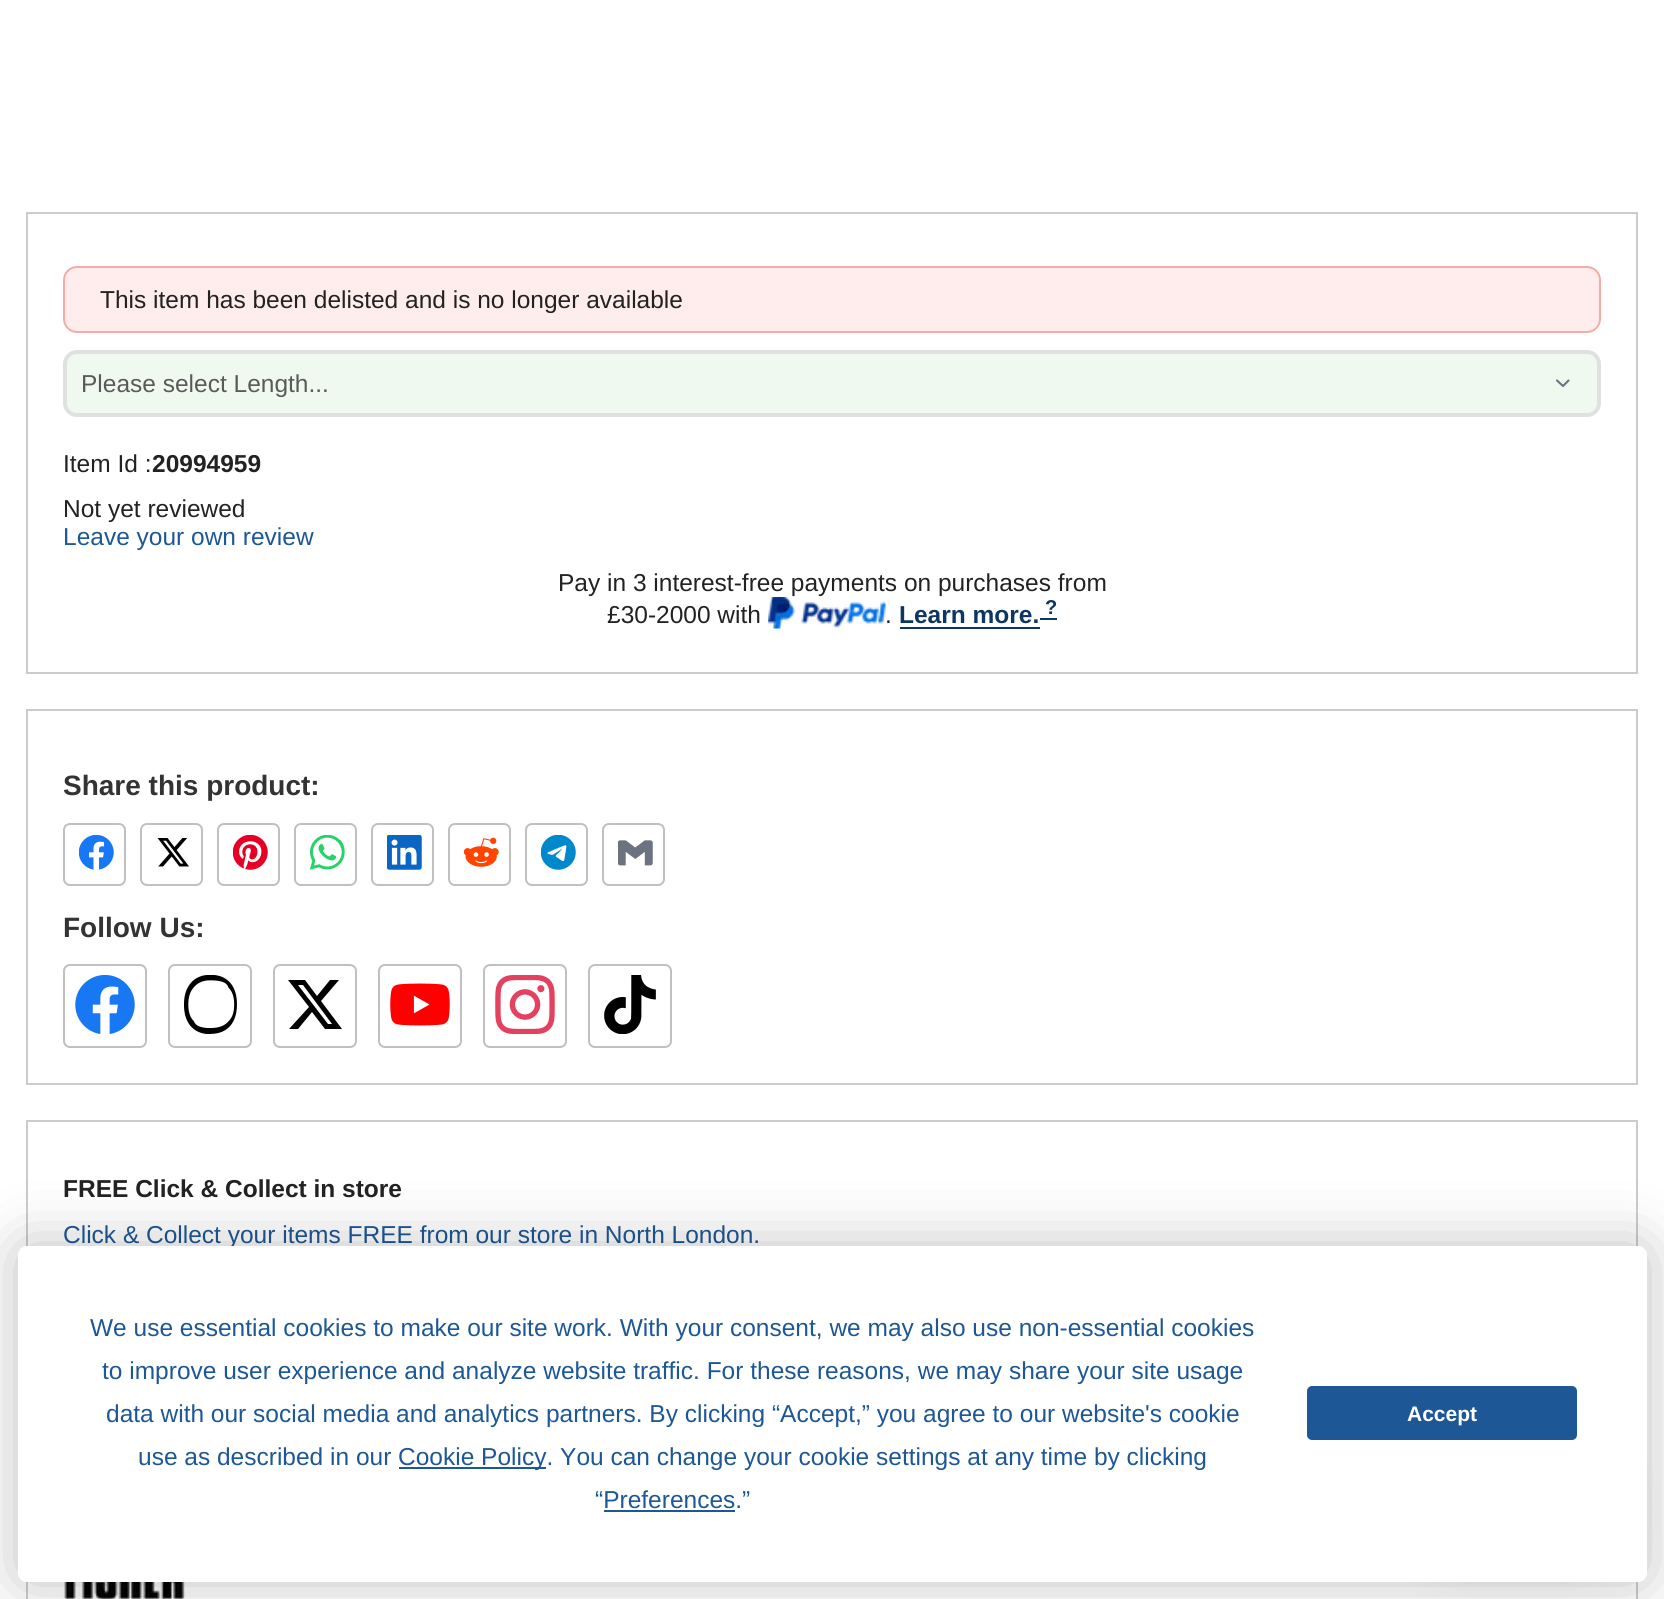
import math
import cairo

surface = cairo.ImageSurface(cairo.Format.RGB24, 1664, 1599)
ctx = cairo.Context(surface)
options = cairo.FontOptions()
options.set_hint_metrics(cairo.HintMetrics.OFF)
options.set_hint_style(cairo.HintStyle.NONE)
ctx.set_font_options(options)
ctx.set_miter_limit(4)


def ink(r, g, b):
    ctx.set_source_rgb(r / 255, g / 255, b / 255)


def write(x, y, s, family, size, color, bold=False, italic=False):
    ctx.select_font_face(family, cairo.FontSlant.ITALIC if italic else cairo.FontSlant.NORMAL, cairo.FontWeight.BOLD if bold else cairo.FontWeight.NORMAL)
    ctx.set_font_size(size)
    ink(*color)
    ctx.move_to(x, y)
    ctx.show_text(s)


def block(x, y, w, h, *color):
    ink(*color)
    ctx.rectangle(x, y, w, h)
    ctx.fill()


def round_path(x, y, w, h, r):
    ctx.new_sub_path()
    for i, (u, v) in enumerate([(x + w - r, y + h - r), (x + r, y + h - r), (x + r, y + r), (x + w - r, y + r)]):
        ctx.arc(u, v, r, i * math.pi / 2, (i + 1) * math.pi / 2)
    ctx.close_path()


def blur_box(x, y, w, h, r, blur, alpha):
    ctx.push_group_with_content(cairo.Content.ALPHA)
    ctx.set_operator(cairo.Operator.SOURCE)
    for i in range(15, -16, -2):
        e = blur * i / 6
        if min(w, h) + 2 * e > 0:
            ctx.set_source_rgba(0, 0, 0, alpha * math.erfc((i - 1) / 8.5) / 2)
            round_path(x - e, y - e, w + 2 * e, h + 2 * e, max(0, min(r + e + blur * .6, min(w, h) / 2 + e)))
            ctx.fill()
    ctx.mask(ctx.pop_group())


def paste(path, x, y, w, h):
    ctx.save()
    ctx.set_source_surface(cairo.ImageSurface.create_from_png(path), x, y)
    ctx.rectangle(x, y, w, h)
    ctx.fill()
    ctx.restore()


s1 = dict(family="Liberation Sans", size=24.5, color=(34, 34, 34))
s2 = dict(family="Liberation Sans", size=24.5, color=(90, 90, 90))
s3 = dict(family="Liberation Sans", size=24.5, color=(34, 34, 34), bold=True)
s4 = dict(family="Liberation Sans", size=24.5, color=(29, 87, 150))
s5 = dict(family="Liberation Sans", size=24.5, color=(13, 54, 96), bold=True)
s6 = dict(family="Liberation Sans", size=20, color=(13, 54, 96), bold=True)
s7 = dict(family="Liberation Sans", size=28, color=(51, 51, 51), bold=True)
s8 = dict(family="Liberation Sans", size=21, color=(255, 255, 255), bold=True)

ink(255, 255, 255)
ctx.paint()
ctx.rectangle(27, 213, 1610, 460)
ink(204, 204, 204)
ctx.stroke()
ink(255, 236, 236)
round_path(64, 267, 1536, 65, 13)
ctx.fill_preserve()
ink(245, 172, 166)
ctx.stroke()
write(100, 308, "This item has been delisted and is no longer available", **s1)
ink(240, 249, 240)
round_path(63, 350, 1538, 67, 14)
ctx.fill()
ctx.new_path()
ctx.move_to(1557, 380.5)
ctx.line_to(1563, 386)
ctx.line_to(1568.5, 380.5)
ink(107, 114, 128)
ctx.set_line_width(2.1)
ctx.set_line_cap(cairo.LineCap.ROUND)
ctx.set_line_join(cairo.LineJoin.ROUND)
ctx.stroke()
round_path(65, 352, 1534, 63, 12)
ink(224, 224, 224)
ctx.set_line_width(4)
ctx.set_line_cap(cairo.LineCap.BUTT)
ctx.set_line_join(cairo.LineJoin.MITER)
ctx.stroke()
write(81, 392, "Please select Length...", **s2)
write(63, 472, "Item Id :", **s1)
write(152, 472, "20994959", **s3)
write(63, 517, "Not yet reviewed", **s1)
write(63, 545, "Leave your own review", **s4)
write(558, 591, "Pay in 3 interest-free payments on purchases from", **s1)
write(607, 623, "£30-2000 with", **s1)
paste("pic1.png", 768, 597, 118, 32)
write(885, 623, ".", **s1)
write(899, 623, "Learn more.", **s5)
block(900, 627, 140, 2, 13, 54, 96)
block(1040, 618, 17, 2, 13, 54, 96)
write(1045, 614, "?", **s6)
ctx.rectangle(27, 710, 1610, 374)
ink(204, 204, 204)
ctx.set_line_width(2)
ctx.stroke()
write(63, 795, "Share this product:", **s7)
round_path(64, 824, 61, 61, 6)
ink(192, 192, 192)
ctx.stroke()
paste("pic2.png", 79, 835, 35, 35)
round_path(141, 824, 61, 61, 6)
ctx.stroke()
paste("pic3.png", 157, 838, 32, 29)
round_path(218, 824, 61, 61, 6)
ctx.stroke()
paste("pic4.png", 233, 835, 35, 35)
round_path(295, 824, 61, 61, 6)
ctx.stroke()
paste("pic5.png", 310, 835, 35, 35)
round_path(372, 824, 61, 61, 6)
ctx.stroke()
paste("pic6.png", 387, 835, 35, 35)
round_path(449, 824, 61, 61, 6)
ctx.stroke()
paste("pic7.png", 464, 837, 35, 30)
round_path(526, 824, 61, 61, 6)
ctx.stroke()
paste("pic8.png", 541, 835, 35, 35)
round_path(603, 824, 61, 61, 6)
ctx.stroke()
paste("pic9.png", 618, 840, 35, 26)
write(63, 937, "Follow Us:", **s7)
round_path(64, 965, 82, 82, 6)
ink(192, 192, 192)
ctx.stroke()
paste("pic10.png", 75, 975, 60, 59)
round_path(169, 965, 82, 82, 6)
ctx.stroke()
paste("pic11.png", 183, 975, 54, 59)
round_path(274, 965, 82, 82, 6)
ctx.stroke()
ink(0, 0, 0)
ctx.new_path()
ctx.move_to(330, 980)
ctx.line_to(339, 980)
ctx.line_to(321, 1001)
ctx.line_to(342, 1029)
ctx.line_to(325, 1029)
ctx.line_to(312, 1012)
ctx.line_to(298, 1029)
ctx.line_to(289, 1029)
ctx.line_to(309, 1007)
ctx.line_to(288, 980)
ctx.line_to(305, 980)
ctx.line_to(317, 996)
ctx.close_path()
ctx.move_to(328, 1024)
ctx.line_to(332, 1024)
ctx.line_to(303, 985)
ctx.line_to(298, 985)
ctx.close_path()
ctx.fill()
round_path(379, 965, 82, 82, 6)
ink(192, 192, 192)
ctx.stroke()
paste("pic12.png", 390, 983, 60, 43)
round_path(484, 965, 82, 82, 6)
ctx.stroke()
paste("pic13.png", 495, 975, 60, 59)
round_path(589, 965, 82, 82, 6)
ctx.stroke()
paste("pic14.png", 604, 975, 52, 59)
ctx.rectangle(27, 1121, 1610, 271)
ink(204, 204, 204)
ctx.stroke()
write(63, 1197, "FREE Click & Collect in store", **s3)
write(63, 1243, "Click & Collect your items FREE from our store in North London.", **s4)
ctx.rectangle(27, 1429, 1610, 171)
ink(204, 204, 204)
ctx.stroke()
paste("pic15.png", 63, 1582, 123, 17)
ink(0, 0, 0)
blur_box(1421, 1460, 191, 98, 49, 22, 0.2)
blur_box(18, 1246, 1629, 336, 9, 30.5, 0.25)
ink(255, 255, 255)
round_path(18, 1246, 1629, 336, 9)
ctx.fill()
write(90, 1336, "We use essential cookies to make our site work. With your consent, we may also use non-essential cookies", **s4)
write(102, 1379, "to improve user experience and analyze website traffic. For these reasons, we may share your site usage", **s4)
write(106, 1422, "data with our social media and analytics partners. By clicking “Accept,” you agree to our website's cookie", **s4)
write(138, 1465, "use as described in our", **s4)
block(399, 1467, 147, 2, 29, 87, 150)
write(398, 1465, "Cookie Policy. You can change your cookie settings at any time by clicking", **s4)
write(595, 1508, "“Preferences.”", **s4)
block(604, 1510, 131, 2, 29, 87, 150)
round_path(1308, 1387, 268, 52, 4)
ctx.fill_preserve()
ctx.stroke()
write(1407, 1421, "Accept", **s8)
surface.write_to_png("screenshot.png")
